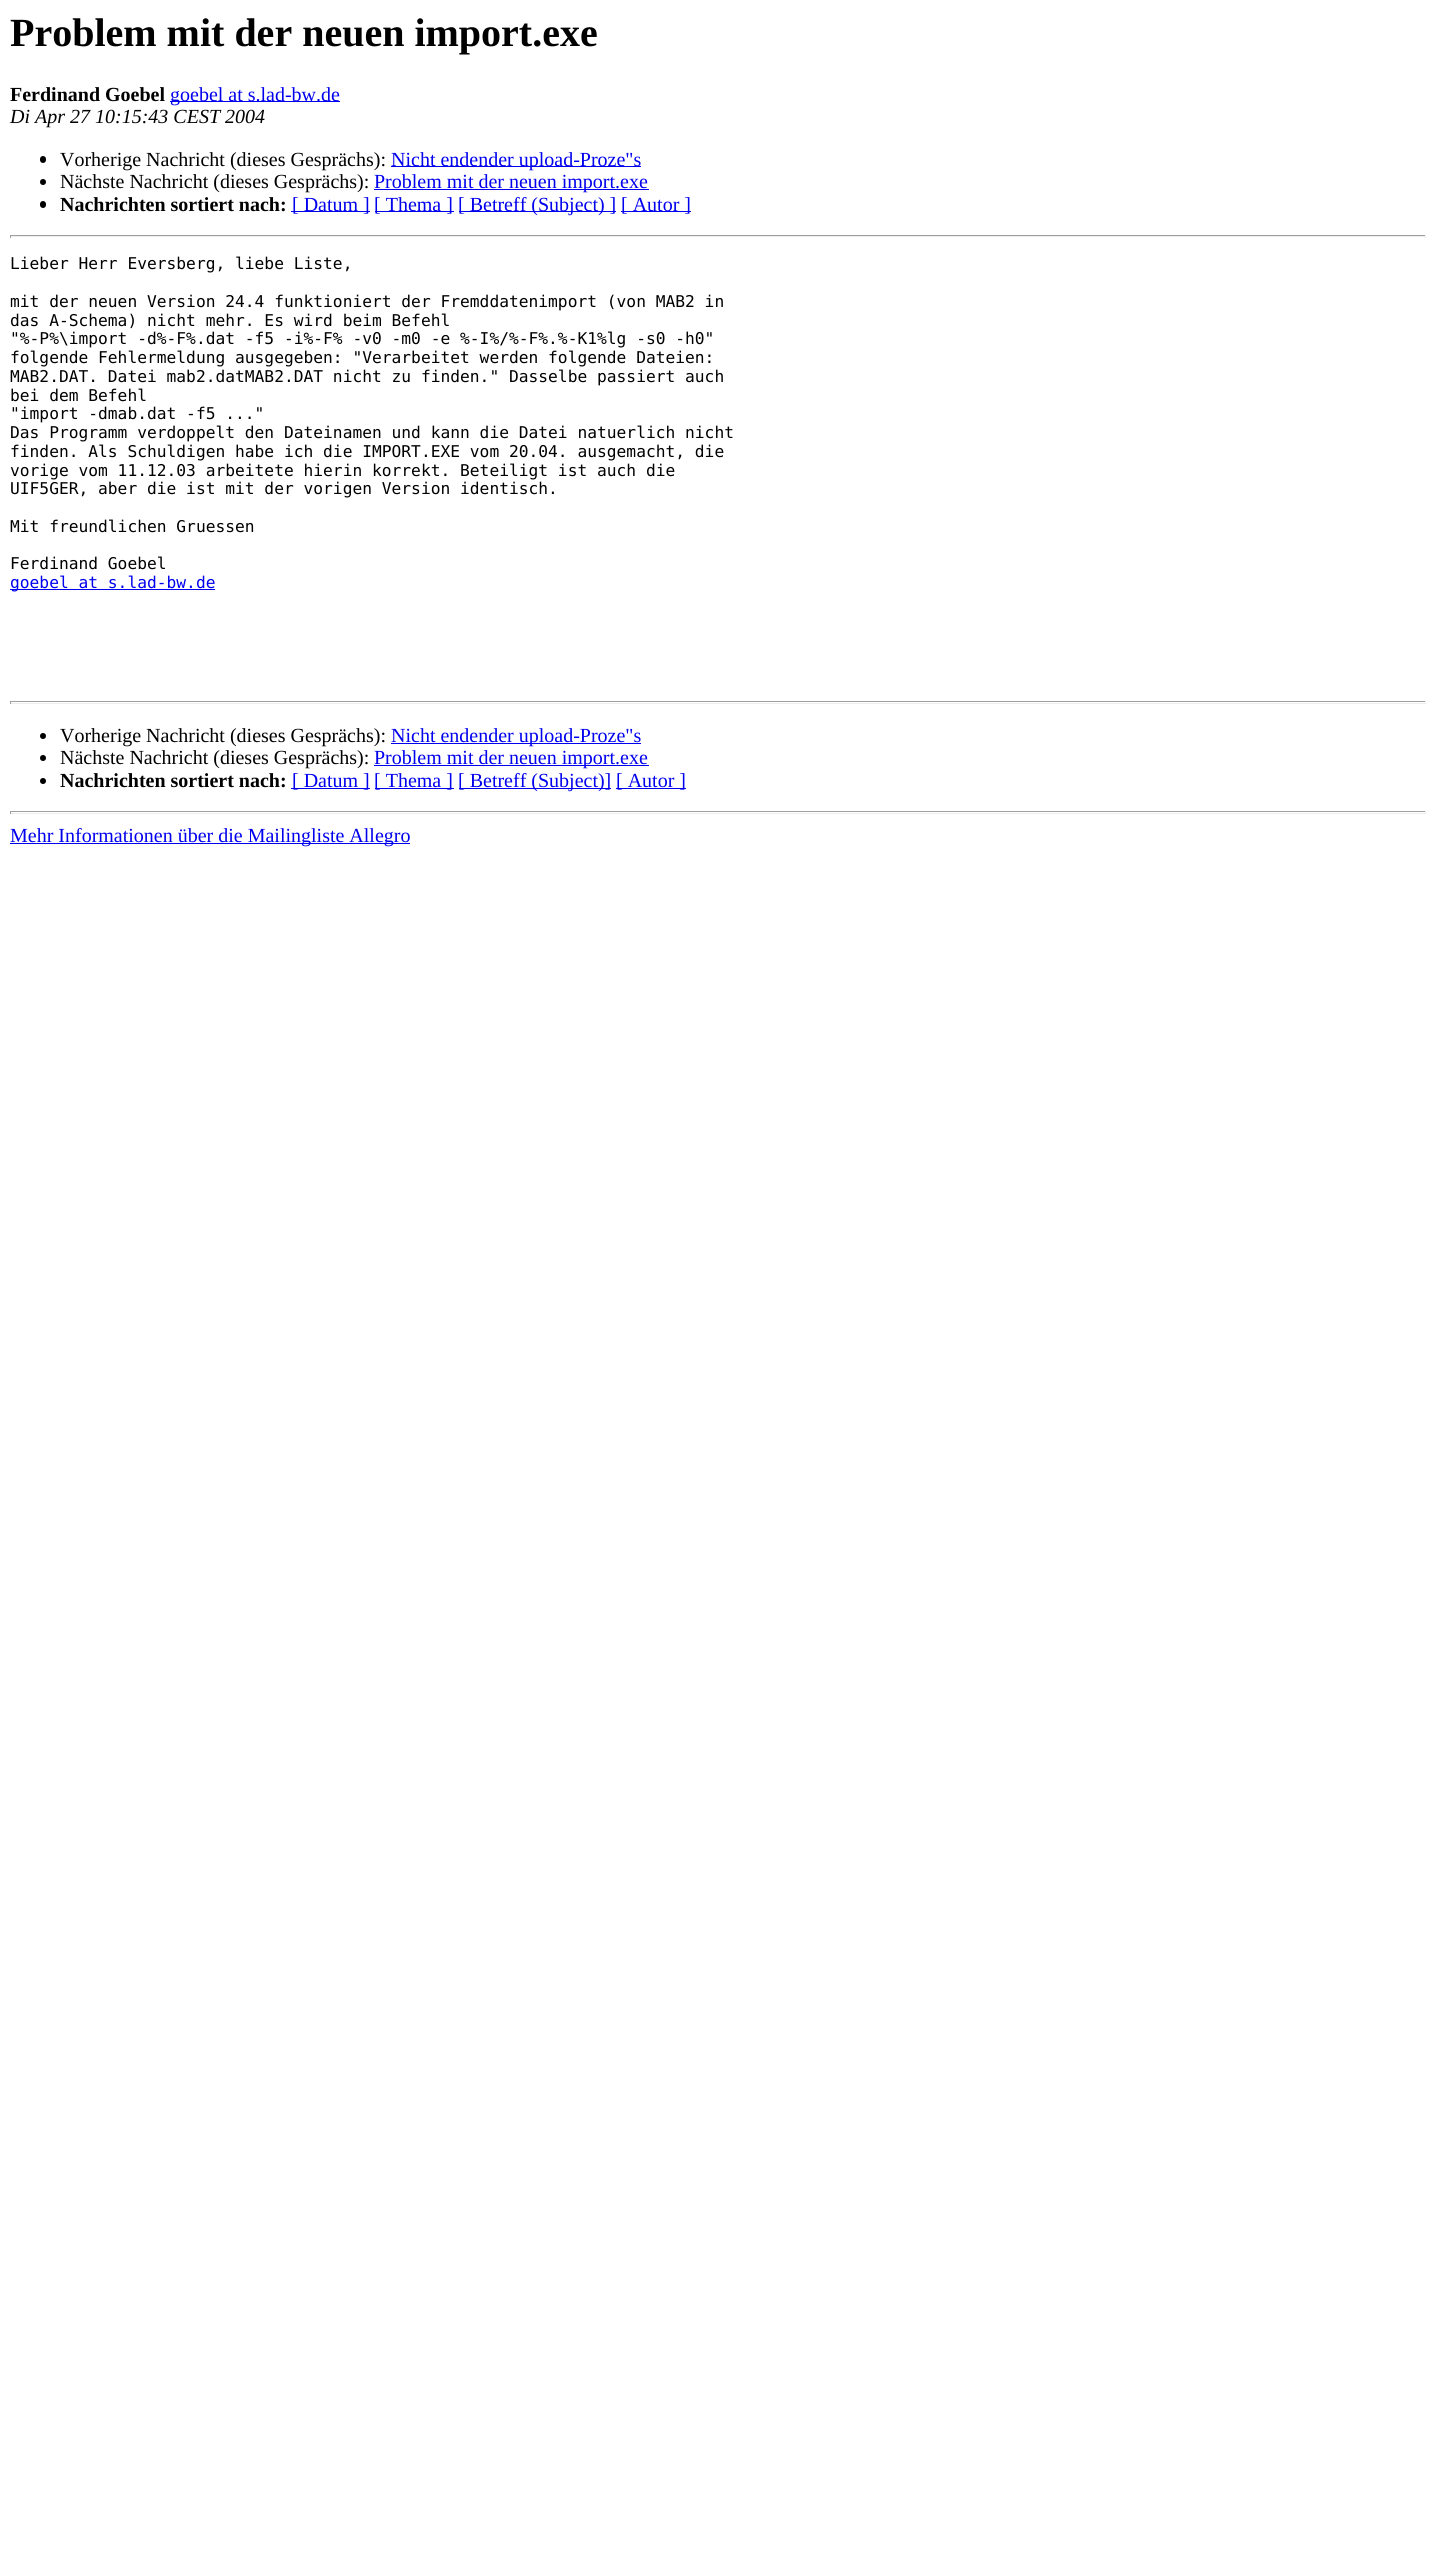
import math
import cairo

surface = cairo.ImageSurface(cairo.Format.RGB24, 1436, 2566)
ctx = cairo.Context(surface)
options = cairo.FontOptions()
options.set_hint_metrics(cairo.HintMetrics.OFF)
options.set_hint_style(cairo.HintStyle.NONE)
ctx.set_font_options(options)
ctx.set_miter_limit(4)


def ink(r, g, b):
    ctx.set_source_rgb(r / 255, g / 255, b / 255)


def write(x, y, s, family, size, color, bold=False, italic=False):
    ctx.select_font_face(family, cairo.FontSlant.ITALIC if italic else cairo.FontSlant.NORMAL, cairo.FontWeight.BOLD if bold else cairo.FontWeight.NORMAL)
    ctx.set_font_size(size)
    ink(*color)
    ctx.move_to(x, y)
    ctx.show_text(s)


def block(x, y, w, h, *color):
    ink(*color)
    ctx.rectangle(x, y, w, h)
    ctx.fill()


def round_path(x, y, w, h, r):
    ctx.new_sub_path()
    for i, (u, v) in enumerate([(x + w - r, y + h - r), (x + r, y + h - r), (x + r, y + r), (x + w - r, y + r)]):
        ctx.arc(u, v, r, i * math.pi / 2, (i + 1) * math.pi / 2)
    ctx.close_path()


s1 = dict(family="Liberation Serif", size=40, color=(0, 0, 0), bold=True)
s2 = dict(family="Liberation Serif", size=20, color=(0, 0, 0), bold=True)
s3 = dict(family="Liberation Serif", size=20, color=(0, 0, 238))
s4 = dict(family="Liberation Serif", size=20, color=(0, 0, 0), italic=True)
s5 = dict(family="Liberation Serif", size=20, color=(0, 0, 0))
s6 = dict(family="DejaVu Sans Mono", size=16.25, color=(0, 0, 0))
s7 = dict(family="DejaVu Sans Mono", size=16.25, color=(0, 0, 238))

ink(255, 255, 255)
ctx.paint()
write(10, 46, "Problem mit der neuen import.exe", **s1)
write(10, 101, "Ferdinand Goebel", **s2)
block(170, 101, 170, 1, 0, 0, 238)
write(170, 101, "goebel at s.lad-bw.de", **s3)
write(10, 123, "Di Apr 27 10:15:43 CEST 2004", **s4)
round_path(40, 156, 6, 7, 3)
ctx.fill()
write(60, 166, "Vorherige Nachricht (dieses Gesprächs):", **s5)
block(391, 166, 250, 1, 0, 0, 238)
write(391, 166, "Nicht endender upload-Proze\"s", **s3)
ink(0, 0, 0)
ctx.new_path()
ctx.arc(43, 182, 3, 0, 2 * math.pi)
ctx.fill()
write(60, 188, "Nächste Nachricht (dieses Gesprächs):", **s5)
block(374, 189, 275, 1, 0, 0, 238)
write(374, 188, "Problem mit der neuen import.exe", **s3)
ink(0, 0, 0)
round_path(40, 201, 6, 7, 3)
ctx.fill()
write(60, 211, "Nachrichten sortiert nach:", **s2)
block(291, 211, 79, 1, 0, 0, 238)
write(292, 211, "[ Datum ]", **s3)
block(375, 211, 79, 1, 0, 0, 238)
write(374, 211, "[ Thema ]", **s3)
block(459, 211, 157, 1, 0, 0, 238)
write(458, 211, "[ Betreff (Subject) ]", **s3)
block(621, 211, 70, 1, 0, 0, 238)
write(621, 211, "[ Autor ]", **s3)
block(10, 235, 1416, 1, 159, 159, 159)
block(1425, 235, 1, 3, 238, 238, 238)
block(10, 236, 1416, 1, 238, 238, 238)
block(10, 235, 1, 3, 159, 159, 159)
write(10, 269, "Lieber Herr Eversberg, liebe Liste,", **s6)
write(10, 307, "mit der neuen Version 24.4 funktioniert der Fremddatenimport (von MAB2 in", **s6)
write(10, 326, "das A-Schema) nicht mehr. Es wird beim Befehl", **s6)
write(10, 344, "\"%-P%\\import -d%-F%.dat -f5 -i%-F% -v0 -m0 -e %-I%/%-F%.%-K1%lg -s0 -h0\"", **s6)
write(10, 363, "folgende Fehlermeldung ausgegeben: \"Verarbeitet werden folgende Dateien:", **s6)
write(10, 382, "MAB2.DAT. Datei mab2.datMAB2.DAT nicht zu finden.\" Dasselbe passiert auch", **s6)
write(10, 401, "bei dem Befehl", **s6)
write(10, 419, "\"import -dmab.dat -f5 ...\"", **s6)
write(10, 438, "Das Programm verdoppelt den Dateinamen und kann die Datei natuerlich nicht", **s6)
write(10, 457, "finden. Als Schuldigen habe ich die IMPORT.EXE vom 20.04. ausgemacht, die", **s6)
write(10, 476, "vorige vom 11.12.03 arbeitete hierin korrekt. Beteiligt ist auch die", **s6)
write(10, 494, "UIF5GER, aber die ist mit der vorigen Version identisch.", **s6)
write(10, 532, "Mit freundlichen Gruessen", **s6)
write(10, 569, "Ferdinand Goebel", **s6)
block(10, 589, 205, 1, 0, 0, 238)
write(10, 588, "goebel at s.lad-bw.de", **s7)
block(10, 701, 1416, 1, 159, 159, 159)
block(1425, 701, 1, 3, 238, 238, 238)
block(10, 703, 1416, 1, 238, 238, 238)
block(10, 701, 1, 3, 159, 159, 159)
ink(0, 0, 0)
ctx.new_path()
ctx.arc(43, 736, 3, 0, 2 * math.pi)
ctx.fill()
write(60, 742, "Vorherige Nachricht (dieses Gesprächs):", **s5)
block(391, 743, 250, 1, 0, 0, 238)
write(391, 742, "Nicht endender upload-Proze\"s", **s3)
ink(0, 0, 0)
ctx.new_path()
ctx.arc(43, 758, 3, 0, 2 * math.pi)
ctx.fill()
write(60, 764, "Nächste Nachricht (dieses Gesprächs):", **s5)
block(374, 765, 275, 1, 0, 0, 238)
write(374, 764, "Problem mit der neuen import.exe", **s3)
ink(0, 0, 0)
ctx.new_path()
ctx.arc(43, 781, 3, 0, 2 * math.pi)
ctx.fill()
write(60, 787, "Nachrichten sortiert nach:", **s2)
block(291, 788, 79, 1, 0, 0, 238)
write(292, 787, "[ Datum ]", **s3)
block(375, 788, 79, 1, 0, 0, 238)
write(374, 787, "[ Thema ]", **s3)
block(459, 788, 152, 1, 0, 0, 238)
write(458, 787, "[ Betreff (Subject)]", **s3)
block(616, 788, 70, 1, 0, 0, 238)
write(616, 787, "[ Autor ]", **s3)
block(10, 811, 1416, 1, 159, 159, 159)
block(1425, 811, 1, 3, 238, 238, 238)
block(10, 813, 1416, 1, 238, 238, 238)
block(10, 811, 1, 3, 159, 159, 159)
block(10, 843, 400, 1, 0, 0, 238)
write(10, 842, "Mehr Informationen über die Mailingliste Allegro", **s3)
surface.write_to_png("screenshot.png")
